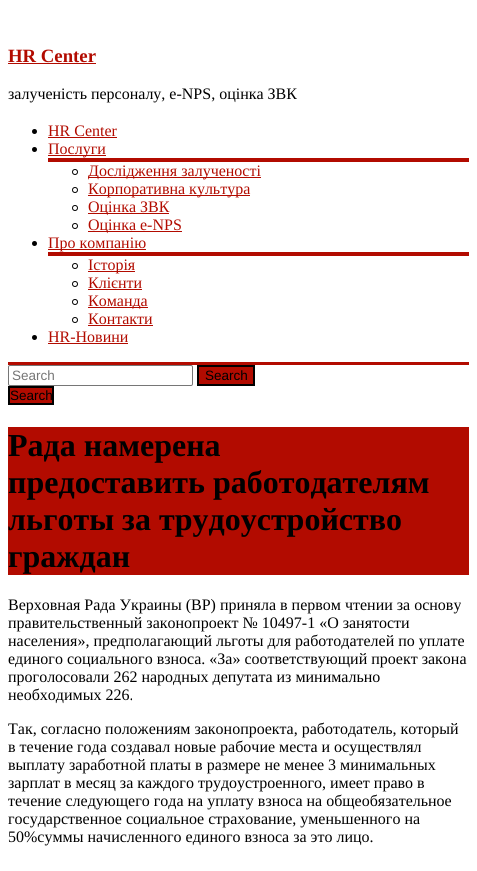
import math
import cairo

surface = cairo.ImageSurface(cairo.Format.RGB24, 477, 871)
ctx = cairo.Context(surface)
options = cairo.FontOptions()
options.set_hint_metrics(cairo.HintMetrics.OFF)
options.set_hint_style(cairo.HintStyle.NONE)
ctx.set_font_options(options)
ctx.set_miter_limit(4)


def ink(r, g, b):
    ctx.set_source_rgb(r / 255, g / 255, b / 255)


def write(x, y, s, family, size, color, bold=False, italic=False):
    ctx.select_font_face(family, cairo.FontSlant.ITALIC if italic else cairo.FontSlant.NORMAL, cairo.FontWeight.BOLD if bold else cairo.FontWeight.NORMAL)
    ctx.set_font_size(size)
    ink(*color)
    ctx.move_to(x, y)
    ctx.show_text(s)


def block(x, y, w, h, *color):
    ink(*color)
    ctx.rectangle(x, y, w, h)
    ctx.fill()


def round_path(x, y, w, h, r):
    ctx.new_sub_path()
    for i, (u, v) in enumerate([(x + w - r, y + h - r), (x + r, y + h - r), (x + r, y + r), (x + w - r, y + r)]):
        ctx.arc(u, v, r, i * math.pi / 2, (i + 1) * math.pi / 2)
    ctx.close_path()


s1 = dict(family="Liberation Serif", size=18.75, color=(178, 11, 0), bold=True)
s2 = dict(family="Liberation Serif", size=16, color=(0, 0, 0))
s3 = dict(family="Liberation Serif", size=16, color=(178, 11, 0))
s4 = dict(family="Liberation Sans", size=13.5, color=(117, 117, 117))
s5 = dict(family="Liberation Sans", size=13.5, color=(0, 0, 0))
s6 = dict(family="Liberation Serif", size=32, color=(0, 0, 0), bold=True)

ink(255, 255, 255)
ctx.paint()
write(8, 62, "HR Center", **s1)
block(8, 63, 88, 1, 178, 11, 0)
write(8, 99, "залученість персоналу, e-NPS, оцінка ЗВК", **s2)
ctx.new_path()
ctx.arc(34.5, 131.5, 2.5, 0, 2 * math.pi)
ctx.fill()
write(48, 136, "HR Center", **s3)
block(48, 137, 69, 1, 178, 11, 0)
ink(0, 0, 0)
ctx.new_path()
ctx.arc(34.5, 149.5, 2.5, 0, 2 * math.pi)
ctx.fill()
block(48, 155, 58, 1, 178, 11, 0)
write(48, 154, "Послуги", **s3)
block(48, 158, 421, 4, 178, 11, 0)
ctx.new_path()
ctx.arc(75, 172, 2.5, 0, 2 * math.pi)
ink(0, 0, 0)
ctx.set_line_width(1)
ctx.stroke()
block(88, 177, 173, 1, 178, 11, 0)
write(88, 176, "Дослідження залученості", **s3)
ctx.new_path()
ctx.arc(75, 190, 2.5, 0, 2 * math.pi)
ink(0, 0, 0)
ctx.stroke()
block(88, 195, 162, 1, 178, 11, 0)
write(88, 194, "Корпоративна культура", **s3)
ctx.new_path()
ctx.arc(75, 208, 2.5, 0, 2 * math.pi)
ink(0, 0, 0)
ctx.stroke()
block(88, 213, 81, 1, 178, 11, 0)
write(88, 212, "Оцінка ЗВК", **s3)
ctx.new_path()
ctx.arc(75, 226, 2.5, 0, 2 * math.pi)
ink(0, 0, 0)
ctx.stroke()
block(88, 231, 94, 1, 178, 11, 0)
write(88, 230, "Оцінка e-NPS", **s3)
ink(0, 0, 0)
ctx.new_path()
ctx.arc(34.5, 243.5, 2.5, 0, 2 * math.pi)
ctx.fill()
block(48, 249, 98, 1, 178, 11, 0)
write(48, 248, "Про компанію", **s3)
block(48, 252, 421, 4, 178, 11, 0)
ctx.new_path()
ctx.arc(75, 266, 2.5, 0, 2 * math.pi)
ink(0, 0, 0)
ctx.stroke()
block(88, 271, 47, 1, 178, 11, 0)
write(88, 270, "Історія", **s3)
ctx.new_path()
ctx.arc(75, 284, 2.5, 0, 2 * math.pi)
ink(0, 0, 0)
ctx.stroke()
write(88, 288, "Клієнти", **s3)
block(88, 289, 54, 1, 178, 11, 0)
ctx.new_path()
ctx.arc(75, 302, 2.5, 0, 2 * math.pi)
ink(0, 0, 0)
ctx.stroke()
block(88, 307, 60, 1, 178, 11, 0)
write(88, 306, "Команда", **s3)
ctx.new_path()
ctx.arc(75, 320, 2.5, 0, 2 * math.pi)
ink(0, 0, 0)
ctx.stroke()
write(88, 324, "Контакти", **s3)
block(88, 325, 65, 1, 178, 11, 0)
ink(0, 0, 0)
ctx.new_path()
ctx.arc(34.5, 337.5, 2.5, 0, 2 * math.pi)
ctx.fill()
write(48, 342, "HR-Новини", **s3)
block(48, 343, 80, 1, 178, 11, 0)
block(8, 362, 461, 3, 178, 11, 0)
round_path(8.5, 365.5, 184, 20, 1.5)
ink(118, 118, 118)
ctx.stroke()
write(12, 380, "Search", **s4)
ink(178, 11, 0)
ctx.rectangle(198, 366, 56, 19)
ctx.fill_preserve()
ink(0, 0, 0)
ctx.set_line_width(2)
ctx.stroke()
write(205, 380, "Search", **s5)
ink(178, 11, 0)
ctx.rectangle(9, 387, 44, 17)
ctx.fill_preserve()
ink(0, 0, 0)
ctx.stroke()
write(10, 400, "Search", **s5)
block(8, 427, 461, 148, 178, 11, 0)
write(8, 456, "Рада намерена", **s6)
write(8, 493, "предоставить работодателям", **s6)
write(8, 530, "льготы за трудоустройство", **s6)
write(8, 567, "граждан", **s6)
write(8, 610, "Верховная Рада Украины (ВР) приняла в первом чтении за основу", **s2)
write(8, 628, "правительственный законопроект № 10497-1 «О занятости", **s2)
write(8, 646, "населения», предполагающий льготы для работодателей по уплате", **s2)
write(8, 664, "единого социального взноса. «За» соответствующий проект закона", **s2)
write(8, 682, "проголосовали 262 народных депутата из минимально", **s2)
write(8, 700, "необходимых 226.", **s2)
write(8, 734, "Так, согласно положениям законопроекта, работодатель, который", **s2)
write(8, 752, "в течение года создавал новые рабочие места и осуществлял", **s2)
write(8, 770, "выплату заработной платы в размере не менее 3 минимальных", **s2)
write(8, 788, "зарплат в месяц за каждого трудоустроенного, имеет право в", **s2)
write(8, 806, "течение следующего года на уплату взноса на общеобязательное", **s2)
write(8, 824, "государственное социальное страхование, уменьшенного на", **s2)
write(8, 842, "50%суммы начисленного единого взноса за это лицо.", **s2)
surface.write_to_png("screenshot.png")
